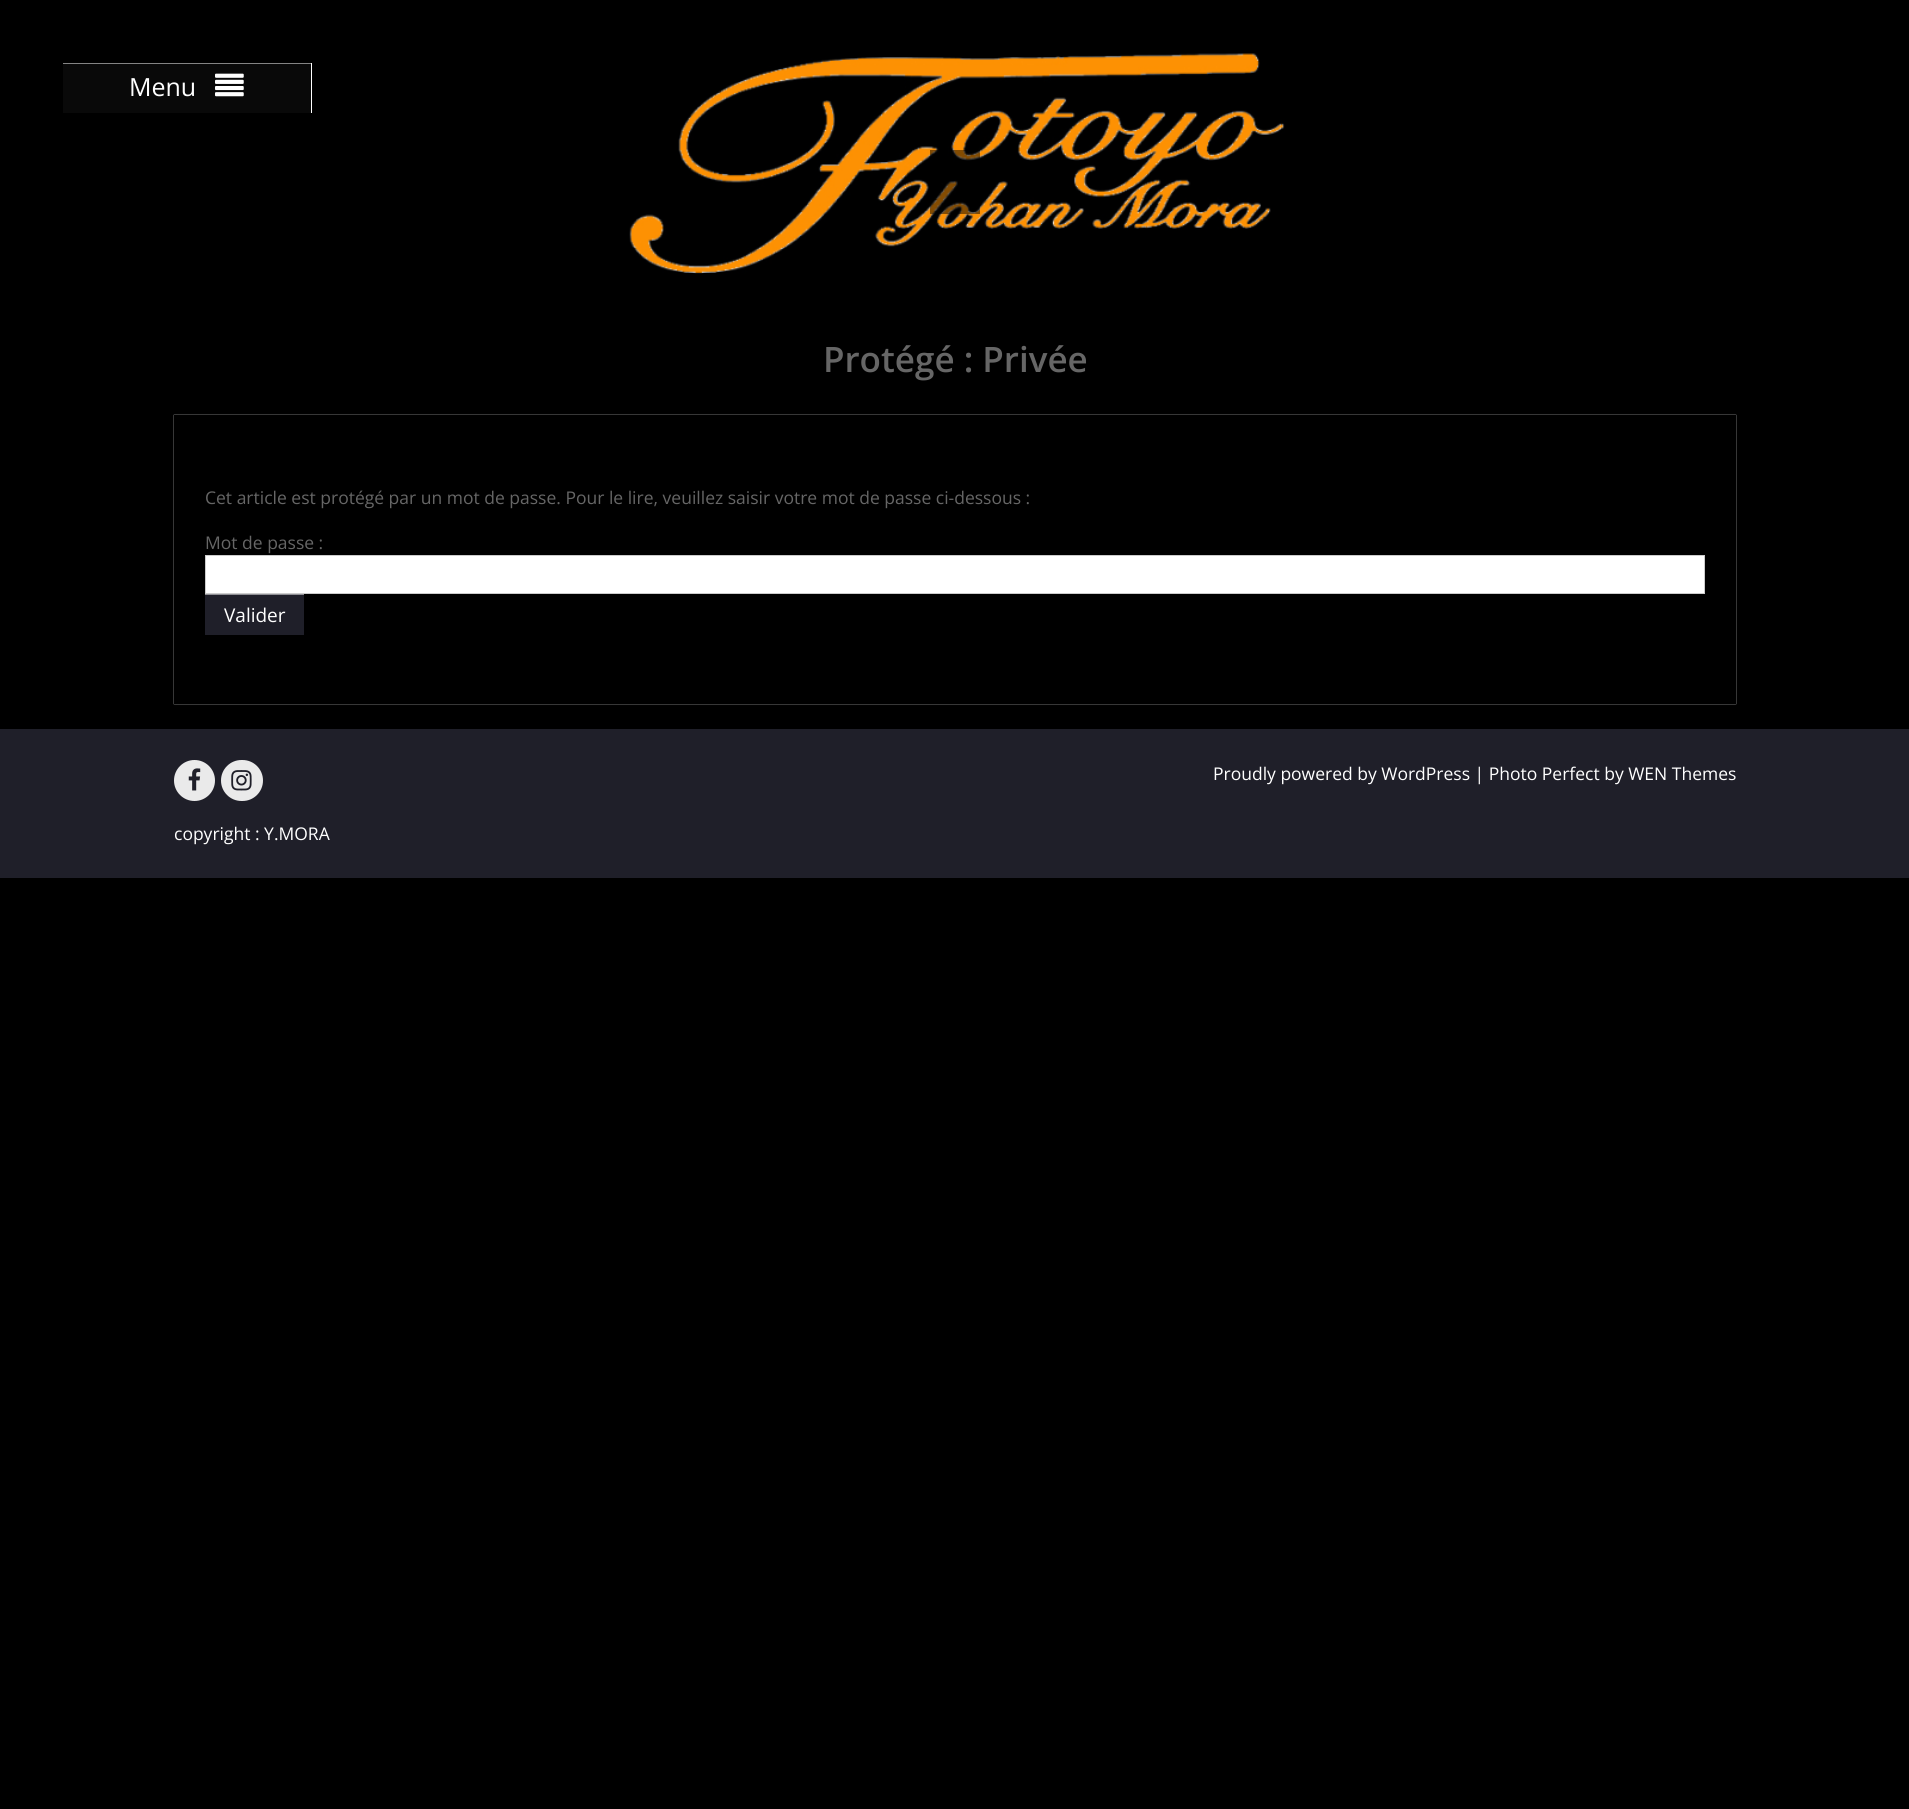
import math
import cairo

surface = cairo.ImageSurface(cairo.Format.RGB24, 1909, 1809)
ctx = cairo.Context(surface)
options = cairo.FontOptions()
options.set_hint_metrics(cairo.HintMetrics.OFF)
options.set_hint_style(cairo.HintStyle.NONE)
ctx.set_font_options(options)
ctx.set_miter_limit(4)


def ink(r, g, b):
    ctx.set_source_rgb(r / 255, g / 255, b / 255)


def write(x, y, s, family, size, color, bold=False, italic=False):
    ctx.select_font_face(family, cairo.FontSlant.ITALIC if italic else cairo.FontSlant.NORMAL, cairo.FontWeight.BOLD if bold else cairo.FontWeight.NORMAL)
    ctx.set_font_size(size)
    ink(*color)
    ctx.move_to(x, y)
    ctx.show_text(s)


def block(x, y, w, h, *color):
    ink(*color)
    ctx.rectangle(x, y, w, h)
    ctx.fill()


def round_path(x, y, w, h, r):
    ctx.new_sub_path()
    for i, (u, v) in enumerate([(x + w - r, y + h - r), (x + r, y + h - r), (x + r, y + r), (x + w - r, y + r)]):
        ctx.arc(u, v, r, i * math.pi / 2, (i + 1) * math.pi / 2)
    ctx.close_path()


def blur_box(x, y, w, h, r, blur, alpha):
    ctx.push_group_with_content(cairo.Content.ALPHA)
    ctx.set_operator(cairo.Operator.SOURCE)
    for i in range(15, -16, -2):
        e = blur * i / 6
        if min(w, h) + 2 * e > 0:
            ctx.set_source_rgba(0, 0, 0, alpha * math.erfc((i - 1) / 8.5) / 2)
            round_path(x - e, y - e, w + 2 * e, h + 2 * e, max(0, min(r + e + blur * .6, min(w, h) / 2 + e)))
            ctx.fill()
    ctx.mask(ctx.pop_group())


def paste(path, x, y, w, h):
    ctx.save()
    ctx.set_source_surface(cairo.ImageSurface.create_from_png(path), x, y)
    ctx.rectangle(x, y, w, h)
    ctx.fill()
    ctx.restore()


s1 = dict(family="Open Sans", size=25, color=(255, 255, 255))
s2 = dict(family="Open Sans SemiBold", size=35, color=(102, 102, 102))
s3 = dict(family="Open Sans", size=17.5, color=(102, 102, 102))
s4 = dict(family="Open Sans", size=19, color=(255, 255, 255))
s5 = dict(family="Open Sans", size=17.5, color=(255, 255, 255))

ink(0, 0, 0)
ctx.paint()
block(311, 63, 1, 50, 255, 255, 255)
block(63, 64, 248, 49, 9, 9, 9)
block(63, 63, 248, 1, 132, 132, 132)
write(129, 96, "Menu", **s1)
paste("pic1.png", 215, 73, 29, 24)
paste("pic2.png", 629, 53, 656, 221)
ctx.set_source_rgba(0, 0, 0, 0.48)
ctx.rectangle(930, 150, 50, 64)
ctx.fill()
write(823, 372, "Protégé : Privée", **s2)
ink(221, 221, 221)
blur_box(174, 415, 1562, 289, 0, 0.5, 1)
block(174, 415, 1562, 289, 0, 0, 0)
write(205, 504, "Cet article est protégé par un mot de passe. Pour le lire, veuillez saisir votre mot de passe ci-dessous :", **s3)
write(205, 549, "Mot de passe :", **s3)
ink(255, 255, 255)
ctx.rectangle(205.5, 555.5, 1499, 38)
ctx.fill_preserve()
ink(204, 204, 204)
ctx.set_line_width(1)
ctx.stroke()
block(205, 595, 99, 40, 31, 31, 41)
block(205, 594, 99, 1, 143, 143, 148)
write(224, 622, "Valider", **s4)
block(0, 729, 1909, 149, 31, 31, 41)
write(1213, 780, "Proudly powered by WordPress | Photo Perfect by WEN Themes", **s5)
ink(234, 234, 234)
ctx.new_path()
ctx.arc(194.5, 780.5, 20.5, 0, 2 * math.pi)
ctx.fill()
paste("pic3.png", 188, 768, 13, 23)
round_path(221, 760, 42, 41, 20.5)
ctx.fill()
paste("pic4.png", 231, 770, 21, 21)
write(174, 840, "copyright : Y.MORA", **s5)
surface.write_to_png("screenshot.png")
